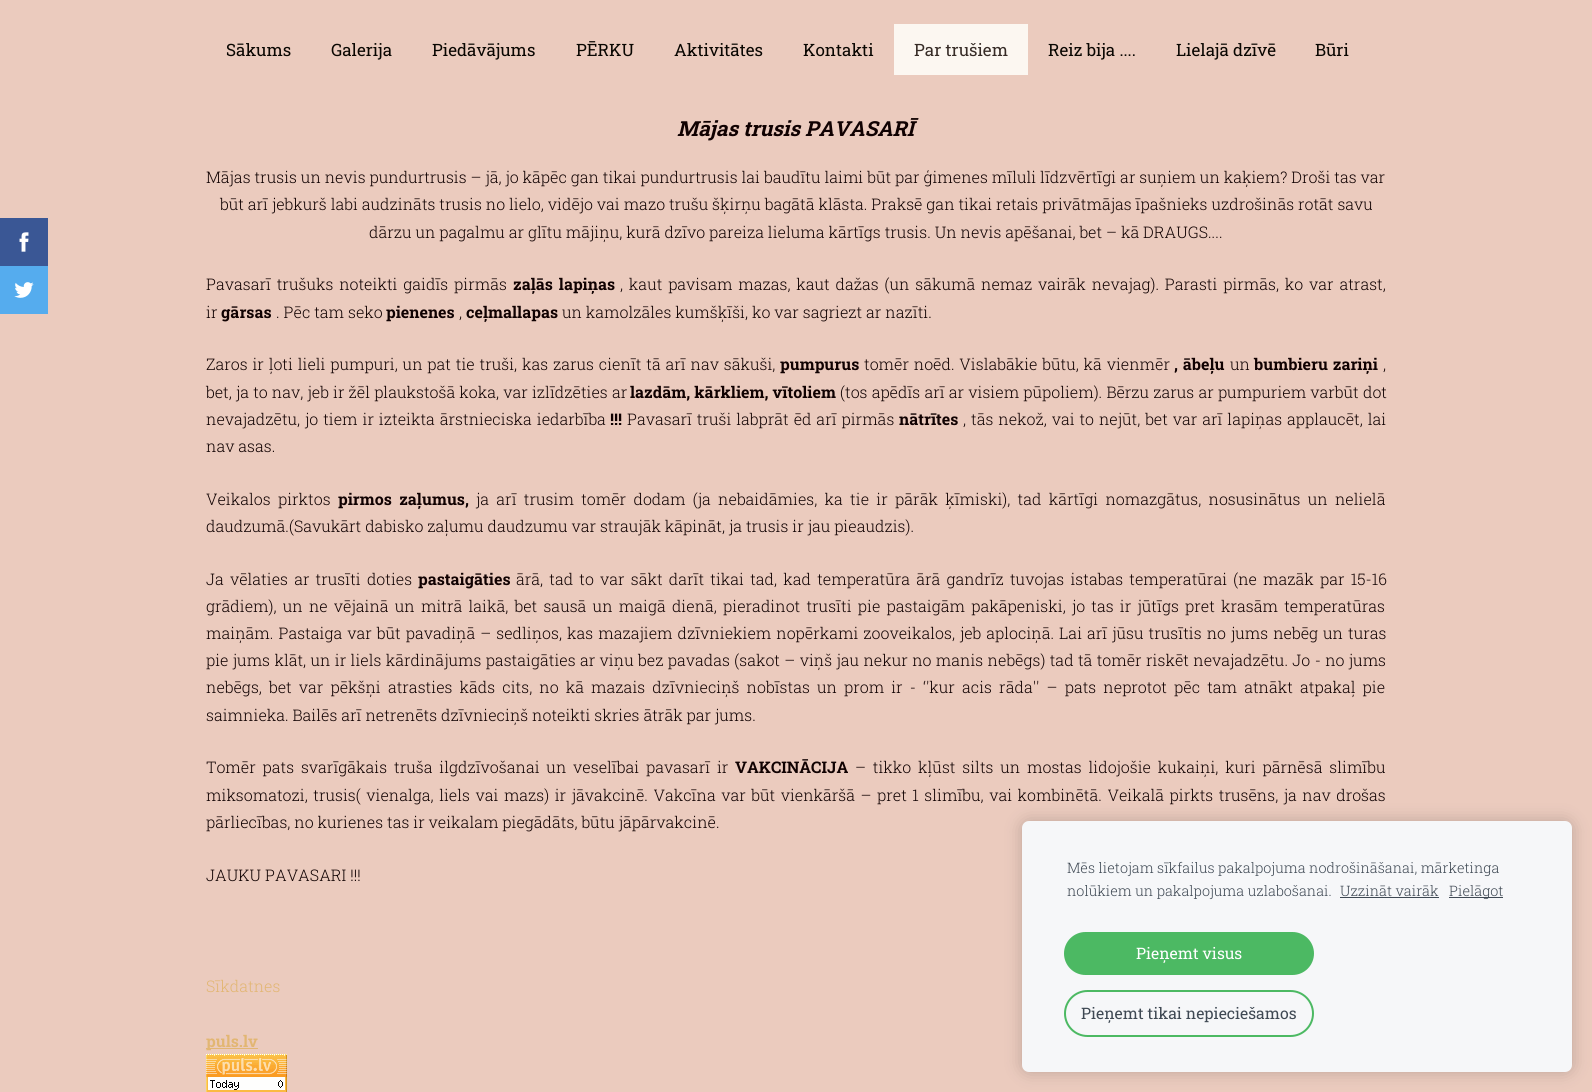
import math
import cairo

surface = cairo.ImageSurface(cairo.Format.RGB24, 1592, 1092)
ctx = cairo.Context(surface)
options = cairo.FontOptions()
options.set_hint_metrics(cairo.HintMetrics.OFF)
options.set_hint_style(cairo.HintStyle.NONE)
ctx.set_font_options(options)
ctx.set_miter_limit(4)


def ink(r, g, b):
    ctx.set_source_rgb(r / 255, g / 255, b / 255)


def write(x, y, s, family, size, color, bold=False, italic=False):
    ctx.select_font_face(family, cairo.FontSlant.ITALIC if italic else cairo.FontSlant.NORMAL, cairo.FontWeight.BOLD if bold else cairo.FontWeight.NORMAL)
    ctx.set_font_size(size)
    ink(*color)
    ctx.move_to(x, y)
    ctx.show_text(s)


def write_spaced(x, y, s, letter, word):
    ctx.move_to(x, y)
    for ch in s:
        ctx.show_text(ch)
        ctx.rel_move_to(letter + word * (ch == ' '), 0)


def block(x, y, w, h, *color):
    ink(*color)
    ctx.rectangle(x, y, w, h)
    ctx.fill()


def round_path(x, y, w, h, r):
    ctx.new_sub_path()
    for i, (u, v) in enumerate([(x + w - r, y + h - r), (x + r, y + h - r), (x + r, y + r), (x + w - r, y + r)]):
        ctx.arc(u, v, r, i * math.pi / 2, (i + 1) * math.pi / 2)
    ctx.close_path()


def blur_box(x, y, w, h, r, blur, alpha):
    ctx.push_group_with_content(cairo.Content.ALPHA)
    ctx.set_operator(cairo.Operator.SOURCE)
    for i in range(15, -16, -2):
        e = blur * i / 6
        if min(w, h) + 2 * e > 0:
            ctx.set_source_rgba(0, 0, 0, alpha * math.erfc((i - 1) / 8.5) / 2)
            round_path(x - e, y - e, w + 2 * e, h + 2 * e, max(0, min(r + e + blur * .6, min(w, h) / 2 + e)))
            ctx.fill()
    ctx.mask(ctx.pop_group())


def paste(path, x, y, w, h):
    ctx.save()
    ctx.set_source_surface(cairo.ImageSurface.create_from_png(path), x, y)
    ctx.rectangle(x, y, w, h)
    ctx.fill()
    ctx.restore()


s1 = dict(family="Roboto Slab", size=17, color=(9, 6, 1))
s2 = dict(family="Roboto Slab", size=17, color=(54, 43, 38))
s3 = dict(family="Roboto Slab", size=20.75, color=(16, 1, 1), bold=True, italic=True)
s4 = dict(family="Roboto Slab Light", size=16, color=(16, 1, 1))
s5 = dict(family="Roboto Slab", size=16, color=(16, 1, 1), bold=True)
s6 = dict(family="Roboto Slab Light", size=16, color=(226, 182, 115))
s7 = dict(family="Roboto Slab", size=16, color=(226, 182, 115), bold=True)
s8 = dict(family="Roboto Slab Light", size=14.4, color=(63, 73, 84))
s9 = dict(family="Roboto Slab", size=15.8, color=(255, 255, 255))
s10 = dict(family="Roboto Slab", size=15.8, color=(63, 73, 84))

ink(235, 203, 190)
ctx.paint()
block(0, 218, 48, 48, 58, 87, 149)
paste("pic1.png", 19, 232, 10, 20)
block(0, 266, 48, 48, 85, 172, 238)
paste("pic2.png", 14, 282, 20, 16)
write(226, 56, "Sākums", **s1)
write(331, 56, "Galerija", **s1)
write(432, 56, "Piedāvājums", **s1)
write(576, 56, "PĒRKU", **s1)
write(674, 56, "Aktivitātes", **s1)
write(803, 56, "Kontakti", **s1)
block(894, 24, 134, 51, 252, 247, 241)
write(914, 56, "Par trušiem", **s2)
write(1048, 56, "Reiz bija ....", **s1)
write(1176, 56, "Lielajā dzīvē", **s1)
write(1315, 56, "Būri", **s1)
write(677, 136, "Mājas trusis PAVASARĪ", **s3)
write(206, 183, "Mājas trusis un nevis pundurtrusis – jā, jo kāpēc gan tikai pundurtrusis lai baudītu laimi būt par ģimenes mīluli līdzvērtīgi ar suņiem un kaķiem? Droši tas var", **s4)
write(220, 210, "būt arī jebkurš labi audzināts trusis no lielo, vidējo vai mazo trušu šķirņu bagātā klāsta. Praksē gan tikai retais privātmājas īpašnieks uzdrošinās rotāt savu", **s4)
write(369, 238, "dārzu un pagalmu ar glītu mājiņu, kurā dzīvo pareiza lieluma kārtīgs trusis. Un nevis apēšanai, bet – kā DRAUGS....", **s4)
write_spaced(206, 290, "Pavasarī trušuks noteikti gaidīs pirmās", 0, 1.9)
ctx.select_font_face("Roboto Slab", cairo.FontSlant.NORMAL, cairo.FontWeight.BOLD)
write_spaced(513, 290, "zaļās lapiņas", 0, 2)
ctx.select_font_face("Roboto Slab Light")
write_spaced(620, 290, ", kaut pavisam mazas, kaut dažas (un sākumā nemaz vairāk nevajag). Parasti pirmās, ko var atrast,", 0, 1.9)
write(206, 318, "ir", **s4)
write(221, 318, "gārsas", **s5)
write(276, 318, ". Pēc tam seko", **s4)
write(386, 318, "pienenes", **s5)
write(459, 318, ",", **s4)
write(466, 318, "ceļmallapas", **s5)
write(562, 318, "un kamolzāles kumšķīši, ko var sagriezt ar nazīti.", **s4)
write_spaced(206, 370, "Zaros ir ļoti lieli pumpuri, un pat tie truši, kas zarus cienīt tā arī nav sākuši,", 0, 0.9)
write(780, 370, "pumpurus", **s5)
ctx.select_font_face("Roboto Slab Light")
write_spaced(864, 370, "tomēr noēd. Vislabākie būtu, kā vienmēr", 0, 0.9)
ctx.select_font_face("Roboto Slab", cairo.FontSlant.NORMAL, cairo.FontWeight.BOLD)
write_spaced(1174, 370, ", ābeļu", 0, 1)
write(1230, 370, "un", **s4)
ctx.select_font_face("Roboto Slab", cairo.FontSlant.NORMAL, cairo.FontWeight.BOLD)
write_spaced(1254, 370, "bumbieru zariņi", 0, 1)
write(1383, 370, ",", **s4)
write_spaced(206, 398, "bet, ja to nav, jeb ir žēl plaukstošā koka, var izlīdzēties ar", 0, 0.25)
ctx.select_font_face("Roboto Slab", cairo.FontSlant.NORMAL, cairo.FontWeight.BOLD)
write_spaced(630, 398, "lazdām, kārkliem, vītoliem", 0, 0.25)
ctx.select_font_face("Roboto Slab Light")
write_spaced(840, 398, "(tos apēdīs arī ar visiem pūpoliem). Bērzu zarus ar pumpuriem varbūt dot", 0, 0.25)
write_spaced(206, 425, "nevajadzētu, jo tiem ir izteikta ārstnieciska iedarbība", 0, 1)
write(610, 425, "!!!", **s5)
ctx.select_font_face("Roboto Slab Light")
write_spaced(627, 425, "Pavasarī truši labprāt ēd arī pirmās", 0, 1)
write(899, 425, "nātrītes", **s5)
ctx.select_font_face("Roboto Slab Light")
write_spaced(963, 425, ", tās nekož, vai to nejūt, bet var arī lapiņas applaucēt, lai", 0, 1)
write(206, 452, "nav asas.", **s4)
write_spaced(206, 505, "Veikalos pirktos", 0, 3.4)
ctx.select_font_face("Roboto Slab", cairo.FontSlant.NORMAL, cairo.FontWeight.BOLD)
write_spaced(338, 505, "pirmos zaļumus,", 0, 3.4)
ctx.select_font_face("Roboto Slab Light")
write_spaced(476, 505, "ja arī trusim tomēr dodam (ja nebaidāmies, ka tie ir pārāk ķīmiski), tad kārtīgi nomazgātus, nosusinātus un nelielā", 0, 3.4)
write(206, 532, "daudzumā.(Savukārt dabisko zaļumu daudzumu var straujāk kāpināt, ja trusis ir jau pieaudzis).", **s4)
write_spaced(206, 585, "Ja vēlaties ar trusīti doties", 0, 2.25)
write(418, 585, "pastaigāties", **s5)
ctx.select_font_face("Roboto Slab Light")
write_spaced(516, 585, "ārā, tad to var sākt darīt tikai tad, kad temperatūra ārā gandrīz tuvojas istabas temperatūrai (ne mazāk par 15-16", 0, 2.25)
write_spaced(206, 612, "grādiem), un ne vējainā un mitrā laikā, bet sausā un maigā dienā, pieradinot trusīti pie pastaigām pakāpeniski, jo tas ir jūtīgs pret krasām temperatūras", 0, 2.3)
write_spaced(206, 639, "maiņām. Pastaiga var būt pavadiņā – sedliņos, kas mazajiem dzīvniekiem nopērkami zooveikalos, jeb aplociņā. Lai arī jūsu trusītis no jums nebēg un turas", 0, 1.1)
write_spaced(206, 666, "pie jums klāt, un ir liels kārdinājums pastaigāties ar viņu bez pavadas (sakot – viņš jau nekur no manis nebēgs) tad tā tomēr riskēt nevajadzētu. Jo - no jums", 0, 0.45)
write_spaced(206, 693, "nebēgs, bet var pēkšņi atrasties kāds cits, no kā mazais dzīvnieciņš nobīstas un prom ir - ‘'kur acis rāda'' – pats neprotot pēc tam atnākt atpakaļ pie", 0, 3.2)
write(206, 721, "saimnieka. Bailēs arī netrenēts dzīvnieciņš noteikti skries ātrāk par jums.", **s4)
write_spaced(206, 773, "Tomēr pats svarīgākais truša ilgdzīvošanai un veselībai pavasarī ir", 0, 2.9)
write(735, 773, "VAKCINĀCIJA", **s5)
ctx.select_font_face("Roboto Slab Light")
write_spaced(855, 773, "– tikko kļūst silts un mostas lidojošie kukaiņi, kuri pārnēsā slimību", 0, 2.9)
write_spaced(206, 801, "miksomatozi, trusis( vienalga, liels vai mazs) ir jāvakcinē. Vakcīna var būt vienkāršā – pret 1 slimību, vai kombinētā. Veikalā pirkts trusēns, ja nav drošas", 0, 1.6)
write(206, 828, "pārliecības, no kurienes tas ir veikalam piegādāts, būtu jāpārvakcinē.", **s4)
write(206, 881, "JAUKU PAVASARI !!!", **s4)
write(206, 992, "Sīkdatnes", **s6)
block(206, 1048, 52, 1, 226, 182, 115)
write(206, 1047, "puls.lv", **s7)
paste("pic3.png", 206, 1054, 81, 38)
ink(0, 0, 0)
blur_box(1022, 821, 550, 251, 7, 8.5, 0.2)
ink(246, 247, 249)
round_path(1022, 821, 550, 251, 7)
ctx.fill()
write(1067, 873, "Mēs lietojam sīkfailus pakalpojuma nodrošināšanai, mārketinga", **s8)
write(1067, 896, "nolūkiem un pakalpojuma uzlabošanai.", **s8)
write(1340, 896, "Uzzināt vairāk", **s8)
block(1340, 897, 99, 1, 63, 73, 84)
block(1449, 897, 54, 1, 63, 73, 84)
write(1449, 896, "Pielāgot", **s8)
ink(76, 185, 99)
round_path(1064, 932, 250, 43, 21.5)
ctx.fill()
write(1136, 959, "Pieņemt visus", **s9)
round_path(1065, 991, 248, 45, 22.5)
ink(76, 185, 99)
ctx.stroke()
write(1081, 1019, "Pieņemt tikai nepieciešamos", **s10)
surface.write_to_png("screenshot.png")
